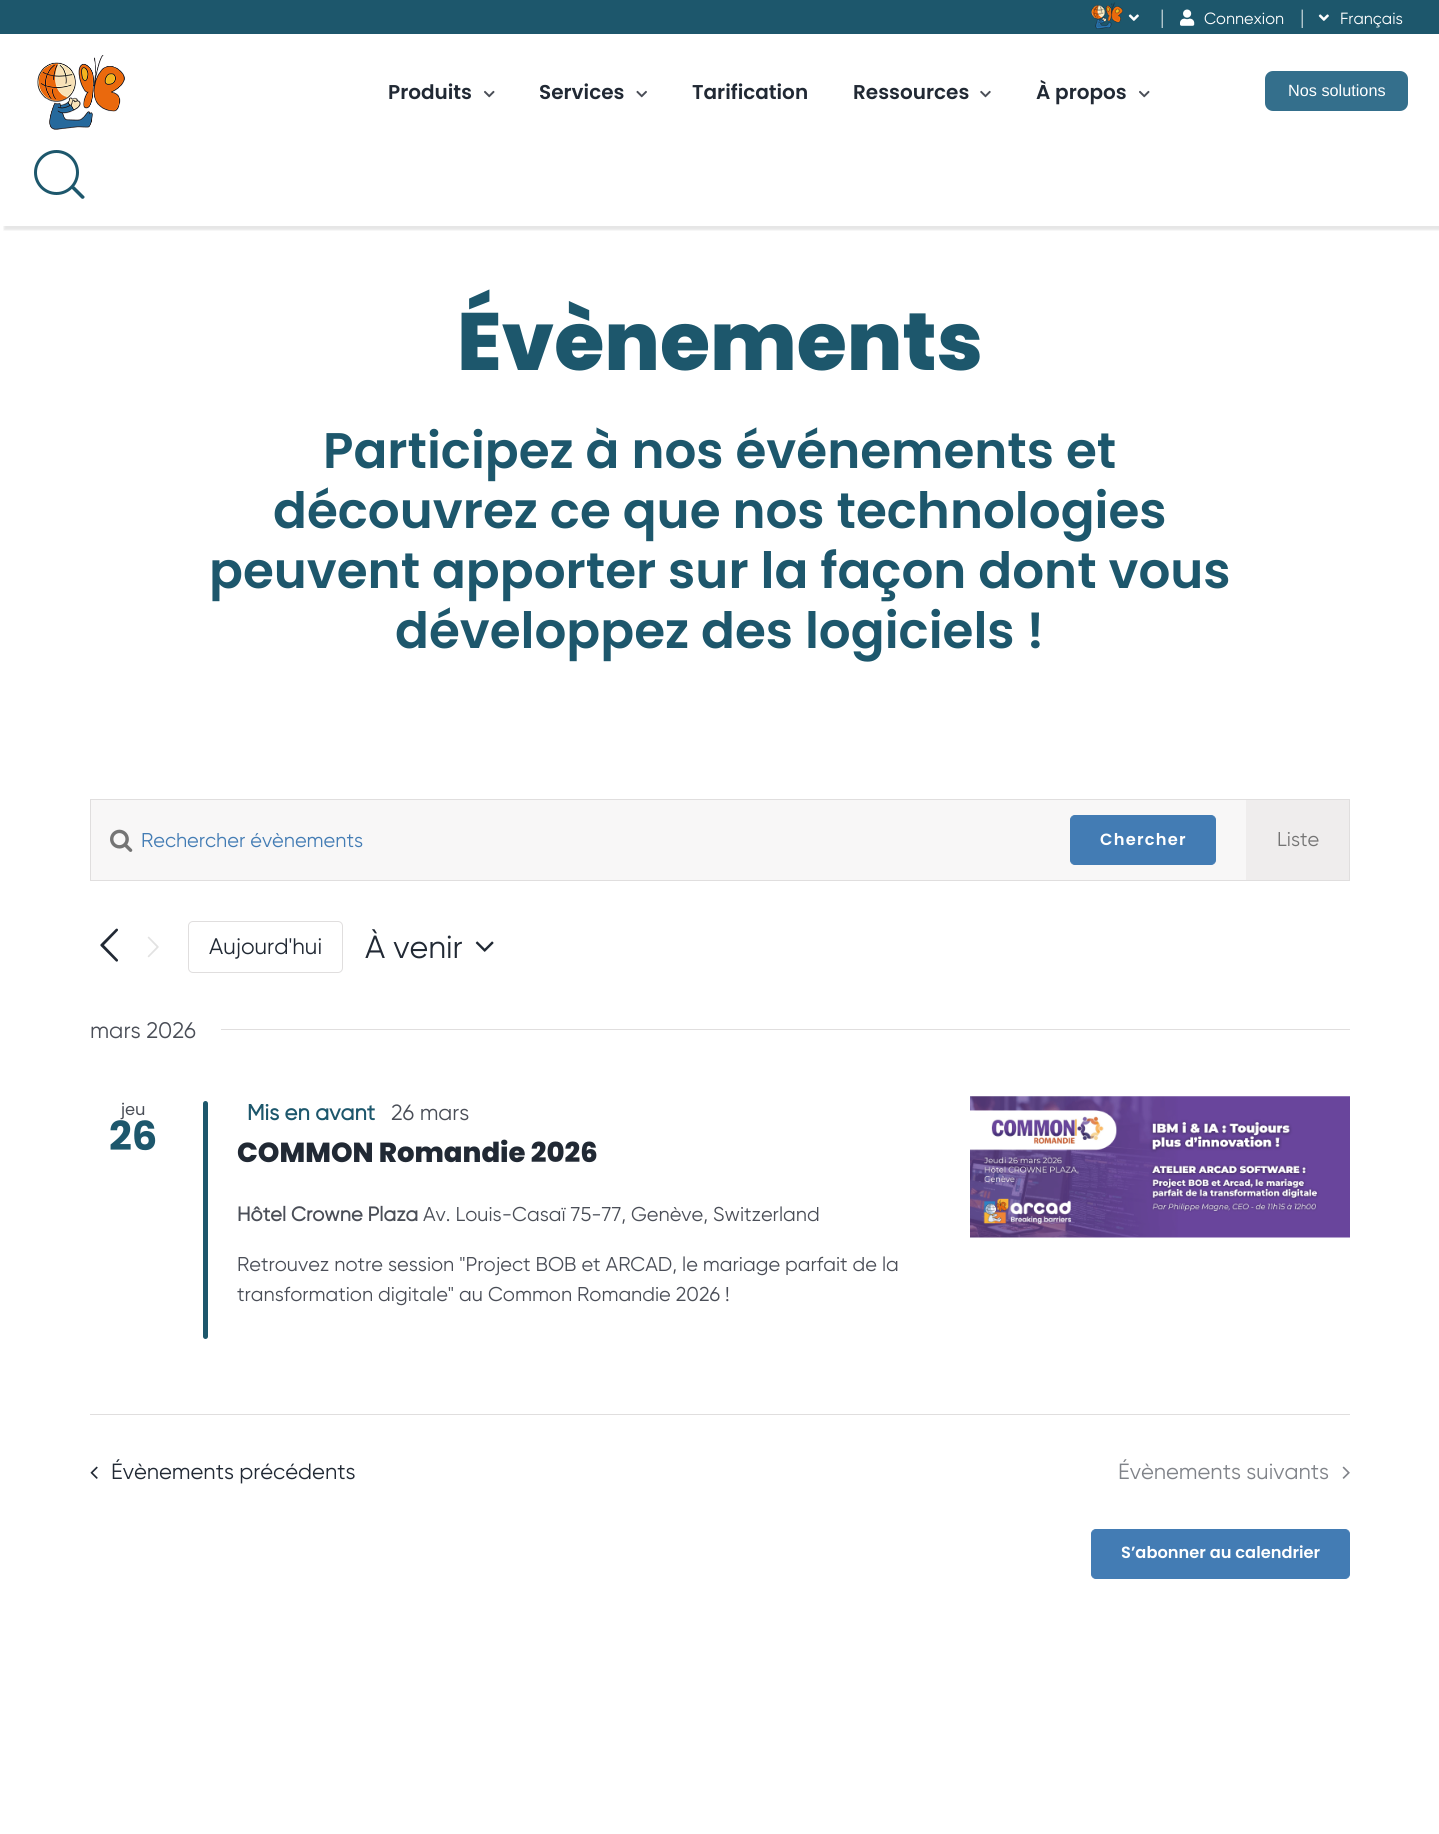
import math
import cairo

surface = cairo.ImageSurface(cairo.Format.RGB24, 1439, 1834)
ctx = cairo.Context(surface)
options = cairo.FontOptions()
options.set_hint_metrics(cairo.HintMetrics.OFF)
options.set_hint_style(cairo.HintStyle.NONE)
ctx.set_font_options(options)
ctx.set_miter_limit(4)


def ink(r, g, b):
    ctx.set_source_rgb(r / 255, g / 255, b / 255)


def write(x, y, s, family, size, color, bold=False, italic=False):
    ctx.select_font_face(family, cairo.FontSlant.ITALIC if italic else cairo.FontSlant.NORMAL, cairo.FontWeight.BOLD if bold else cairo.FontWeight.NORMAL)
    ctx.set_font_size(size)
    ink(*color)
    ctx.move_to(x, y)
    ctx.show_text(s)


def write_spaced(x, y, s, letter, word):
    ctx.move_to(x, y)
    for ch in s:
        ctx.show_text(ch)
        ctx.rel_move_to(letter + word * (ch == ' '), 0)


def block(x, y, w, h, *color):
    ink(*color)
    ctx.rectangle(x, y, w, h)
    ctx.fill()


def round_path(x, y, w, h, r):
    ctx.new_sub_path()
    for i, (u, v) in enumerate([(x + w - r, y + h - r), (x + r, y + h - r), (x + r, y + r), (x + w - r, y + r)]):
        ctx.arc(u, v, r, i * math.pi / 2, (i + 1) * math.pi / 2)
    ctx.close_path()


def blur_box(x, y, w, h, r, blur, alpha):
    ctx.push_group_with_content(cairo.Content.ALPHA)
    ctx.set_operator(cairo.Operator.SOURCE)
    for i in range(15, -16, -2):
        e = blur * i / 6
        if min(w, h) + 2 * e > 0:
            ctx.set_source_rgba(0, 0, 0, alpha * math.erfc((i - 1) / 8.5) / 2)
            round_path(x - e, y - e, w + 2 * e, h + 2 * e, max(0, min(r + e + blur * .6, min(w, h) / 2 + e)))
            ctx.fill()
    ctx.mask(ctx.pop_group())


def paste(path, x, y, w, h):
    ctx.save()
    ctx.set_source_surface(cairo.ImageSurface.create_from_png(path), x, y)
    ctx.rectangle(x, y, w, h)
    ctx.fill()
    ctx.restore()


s1 = dict(family="Gilroy", size=20, color=(187, 205, 211))
s2 = dict(family="Gilroy", size=16.25, color=(255, 255, 255))
s3 = dict(family="Poppins SemiBold", size=20, color=(33, 41, 52))
s4 = dict(family="Liberation Sans", size=16.25, color=(255, 255, 255))
s5 = dict(family="Poppins ExtraBold", size=81.25, color=(29, 87, 108))
s6 = dict(family="Poppins SemiBold", size=50, color=(29, 87, 108))
s7 = dict(family="Gilroy", size=20, color=(67, 124, 180))
s8 = dict(family="Gilroy", size=20, color=(116, 116, 116))
s9 = dict(family="Gilroy", size=22.5, color=(33, 41, 52))
s10 = dict(family="Gilroy", size=32, color=(33, 41, 52))
s11 = dict(family="Gilroy", size=22.5, color=(74, 78, 87))
s12 = dict(family="Poppins", size=16.25, color=(74, 78, 87))
s13 = dict(family="Poppins", size=40, color=(29, 87, 108), bold=True)
s14 = dict(family="Gilroy", size=22, color=(29, 87, 108), bold=True)
s15 = dict(family="Gilroy", size=22, color=(74, 78, 87))
s16 = dict(family="Poppins ExtraBold", size=27.5, color=(33, 41, 52))
s17 = dict(family="Gilroy", size=20, color=(74, 78, 87), bold=True)
s18 = dict(family="Gilroy", size=20, color=(74, 78, 87))
s19 = dict(family="Gilroy", size=22, color=(33, 41, 52))
s20 = dict(family="Gilroy", size=22, color=(128, 131, 137))
s21 = dict(family="Poppins SemiBold", size=16.25, color=(255, 255, 255))

ink(255, 255, 255)
ctx.paint()
block(0, 0, 1439, 34, 29, 87, 108)
paste("pic1.png", 1091, 2, 32, 27)
paste("pic2.png", 1128, 14, 11, 7)
write(1160, 24, "|", **s1)
paste("pic3.png", 1180, 9, 15, 17)
write(1204, 24, "Connexion", **s2)
write(1300, 24, "|", **s1)
paste("pic2.png", 1318, 14, 11, 7)
write(1340, 24, "Français", **s2)
ctx.save()
ctx.rectangle(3, 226, 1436, 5)
ctx.clip()
ink(0, 0, 0)
blur_box(4, 38, 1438, 192, 0, 1, 0.1)
ctx.restore()
paste("pic4.png", 37, 55, 88, 75)
write(388, 99, "Produits", **s3)
paste("pic5.png", 484, 90, 11, 8)
write(539, 99, "Services", **s3)
paste("pic6.png", 636, 90, 11, 8)
write(692, 99, "Tarification", **s3)
write(853, 99, "Ressources", **s3)
paste("pic7.png", 980, 90, 11, 8)
write(1036, 99, "À propos", **s3)
paste("pic5.png", 1139, 90, 11, 8)
ink(52, 111, 140)
round_path(1265, 71, 143, 40, 8)
ctx.fill()
write(1288, 96, "Nos solutions", **s4)
ink(29, 87, 108)
ctx.new_path()
ctx.move_to(75, 187)
ctx.line_to(84.5, 196.5)
ctx.curve_to(85, 198, 83, 199.5, 81.5, 198.5)
ctx.line_to(72, 189)
ctx.curve_to(71.5, 187, 74, 185.5, 75, 187)
ctx.close_path()
ctx.fill()
ctx.arc(56.5, 172.5, 21, 0, 2 * math.pi)
ctx.set_line_width(3)
ctx.stroke()
write(457, 370, "Évènements", **s5)
write(323, 468, "Participez à nos événements et", **s6)
write(273, 528, "découvrez ce que nos technologies", **s6)
write(209, 588, "peuvent apporter sur la façon dont vous", **s6)
write(395, 648, "développez des logiciels !", **s6)
block(91, 800, 1155, 80, 248, 247, 247)
ctx.rectangle(90.5, 799.5, 1259, 81)
ink(224, 222, 222)
ctx.set_line_width(1)
ctx.stroke()
paste("pic8.png", 110, 829, 23, 23)
write(141, 847, "Rechercher évènements", **s7)
round_path(1070.5, 815.5, 145, 49, 4.5)
ctx.fill_preserve()
ctx.stroke()
ctx.select_font_face("Poppins SemiBold")
ctx.set_font_size(16.25)
ink(255, 255, 255)
write_spaced(1100, 845, "Chercher", 1.25, 0)
block(1246, 800, 103, 80, 239, 237, 237)
write(1277, 846, "Liste", **s8)
paste("pic9.png", 100, 928, 18, 34)
paste("pic10.png", 147, 936, 12, 22)
round_path(188.5, 921.5, 154, 51, 4.5)
ink(224, 222, 222)
ctx.stroke()
write(209, 954, "Aujourd'hui", **s9)
write(365, 958, "À venir", **s10)
paste("pic11.png", 475, 941, 19, 11)
write(90, 1038, "mars 2026", **s11)
block(221, 1029, 1129, 1, 224, 222, 222)
write(121, 1115, "jeu", **s12)
ink(29, 87, 108)
round_path(203, 1101, 5, 238, 2.5)
ctx.fill()
write(109, 1150, "26", **s13)
write(247, 1120, "Mis en avant", **s14)
write(391, 1120, "26 mars", **s15)
write(237, 1162, "COMMON Romandie 2026", **s16)
write(237, 1221, "Hôtel Crowne Plaza", **s17)
write(423, 1221, "Av. Louis-Casaï 75-77, Genève, Switzerland", **s18)
write(237, 1271, "Retrouvez notre session \"Project BOB et ARCAD, le mariage parfait de la", **s18)
write(237, 1301, "transformation digitale\" au Common Romandie 2026 !", **s18)
paste("pic12.png", 970, 1096, 380, 142)
block(90, 1414, 1260, 1, 224, 222, 222)
paste("pic13.png", 90, 1466, 8, 13)
write(111, 1479, "Évènements précédents", **s19)
write(1118, 1479, "Évènements suivants", **s20)
paste("pic14.png", 1342, 1466, 8, 13)
ink(67, 124, 180)
round_path(1091.5, 1529.5, 258, 49, 4.5)
ctx.fill_preserve()
ctx.stroke()
write(1121, 1558, "S’abonner au calendrier", **s21)
surface.write_to_png("screenshot.png")
